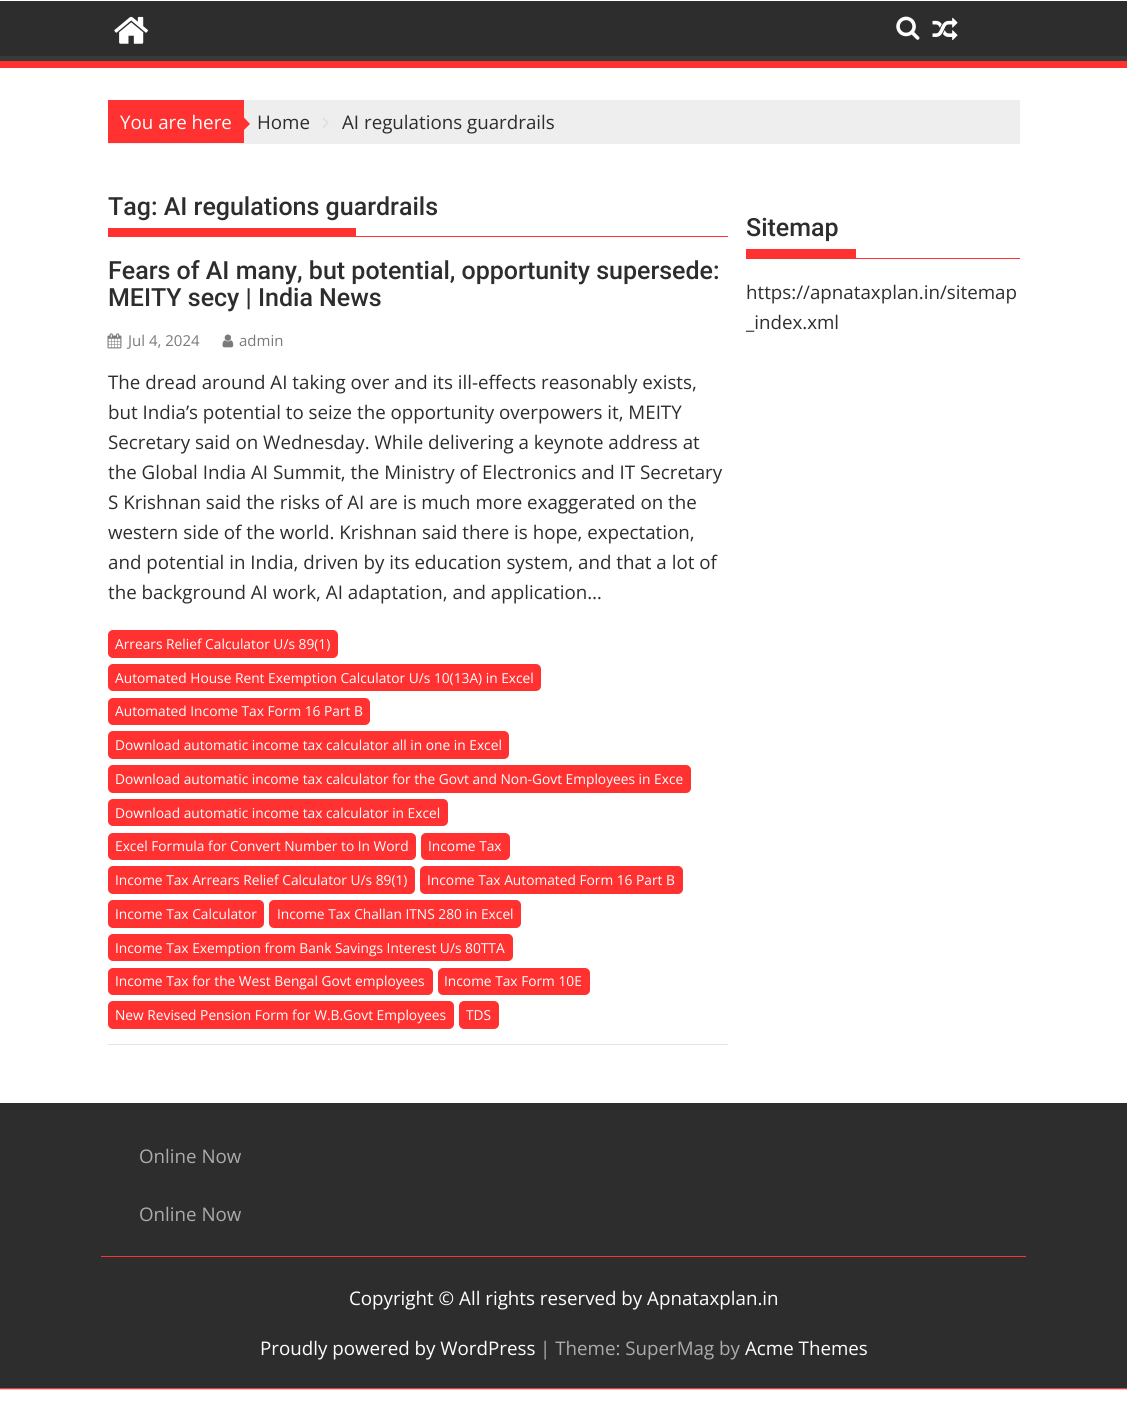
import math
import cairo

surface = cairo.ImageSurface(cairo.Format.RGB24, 1127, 1402)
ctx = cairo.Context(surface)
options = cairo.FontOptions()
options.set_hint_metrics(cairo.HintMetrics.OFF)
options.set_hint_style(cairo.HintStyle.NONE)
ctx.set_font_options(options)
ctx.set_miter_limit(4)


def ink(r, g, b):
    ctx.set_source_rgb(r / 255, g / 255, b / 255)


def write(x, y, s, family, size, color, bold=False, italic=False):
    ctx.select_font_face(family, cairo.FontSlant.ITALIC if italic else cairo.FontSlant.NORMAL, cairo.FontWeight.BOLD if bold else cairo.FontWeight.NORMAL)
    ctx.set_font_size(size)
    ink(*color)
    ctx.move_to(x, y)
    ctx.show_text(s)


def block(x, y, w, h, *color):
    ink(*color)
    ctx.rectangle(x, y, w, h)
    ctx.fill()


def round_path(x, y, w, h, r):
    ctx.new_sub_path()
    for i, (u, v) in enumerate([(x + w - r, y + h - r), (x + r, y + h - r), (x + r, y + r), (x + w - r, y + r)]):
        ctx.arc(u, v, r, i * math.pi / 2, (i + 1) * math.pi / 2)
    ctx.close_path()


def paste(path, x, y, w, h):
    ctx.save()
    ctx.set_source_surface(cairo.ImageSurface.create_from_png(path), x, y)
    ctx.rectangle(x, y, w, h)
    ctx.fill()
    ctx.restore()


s1 = dict(family="Open Sans", size=18.75, color=(255, 255, 255))
s2 = dict(family="Open Sans", size=18.75, color=(45, 45, 45))
s3 = dict(family="Roboto Medium", size=25, color=(45, 45, 45))
s4 = dict(family="Open Sans", size=15, color=(122, 122, 122))
s5 = dict(family="Open Sans", size=13.75, color=(255, 255, 255))
s6 = dict(family="Open Sans", size=18.75, color=(171, 171, 171))

ink(255, 255, 255)
ctx.paint()
block(0, 1, 1127, 55, 45, 45, 45)
ctx.save()
ctx.rectangle(0, 1, 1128, 60)
ctx.clip()
ink(57, 57, 57)
ctx.set_fill_rule(cairo.FillRule.EVEN_ODD)
ctx.new_path()
ctx.move_to(-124, -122)
ctx.line_to(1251, -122)
ctx.line_to(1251, 185)
ctx.line_to(-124, 185)
ctx.close_path()
ctx.move_to(-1, -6)
ctx.line_to(1126, -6)
ctx.curve_to(1127, -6, 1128, -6, 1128, -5)
ctx.line_to(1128, 55)
ctx.curve_to(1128, 56, 1127, 56, 1126, 56)
ctx.line_to(-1, 56)
ctx.curve_to(-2, 56, -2, 56, -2, 55)
ctx.line_to(-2, -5)
ctx.curve_to(-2, -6, -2, -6, -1, -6)
ctx.close_path()
ctx.fill()
ctx.restore()
block(0, 61, 1127, 7, 255, 49, 49)
paste("pic1.png", 114, 16, 34, 28)
paste("pic2.png", 896, 16, 24, 24)
paste("pic3.png", 932, 17, 26, 23)
block(108, 100, 912, 44, 238, 238, 239)
block(108, 100, 136, 43, 255, 49, 49)
write(120, 129, "You are here", **s1)
ink(255, 49, 49)
ctx.new_path()
ctx.move_to(244, 130)
ctx.line_to(244, 117.5)
ctx.line_to(250, 124)
ctx.close_path()
ctx.fill()
write(257, 129, "Home", **s2)
paste("pic4.png", 323, 117, 6, 11)
write(342, 129, "AI regulations guardrails", **s2)
block(108, 236, 620, 1, 255, 49, 49)
write(108, 215, "Tag: AI regulations guardrails", **s3)
block(108, 228, 248, 8, 255, 49, 49)
block(108, 1044, 620, 1, 229, 229, 229)
write(108, 279, "Fears of AI many, but potential, opportunity supersede:", **s3)
write(108, 306, "MEITY secy | India News", **s3)
paste("pic5.png", 107, 333, 15, 16)
write(128, 346, "Jul 4, 2024", **s4)
paste("pic6.png", 222, 334, 12, 14)
write(239, 346, "admin", **s4)
write(108, 389, "The dread around AI taking over and its ill-effects reasonably exists,", **s2)
write(108, 419, "but India’s potential to seize the opportunity overpowers it, MEITY", **s2)
write(108, 449, "Secretary said on Wednesday. While delivering a keynote address at", **s2)
write(108, 479, "the Global India AI Summit, the Ministry of Electronics and IT Secretary", **s2)
write(108, 509, "S Krishnan said the risks of AI are is much more exaggerated on the", **s2)
write(108, 539, "western side of the world. Krishnan said there is hope, expectation,", **s2)
write(108, 569, "and potential in India, driven by its education system, and that a lot of", **s2)
write(108, 599, "the background AI work, AI adaptation, and application…", **s2)
ink(255, 49, 49)
round_path(108, 630, 230, 28, 5)
ctx.fill()
write(115, 649, "Arrears Relief Calculator U/s 89(1)", **s5)
ink(255, 49, 49)
round_path(108, 664, 433, 27, 5)
ctx.fill()
write(115, 683, "Automated House Rent Exemption Calculator U/s 10(13A) in Excel", **s5)
ink(255, 49, 49)
round_path(108, 698, 262, 27, 5)
ctx.fill()
write(115, 716, "Automated Income Tax Form 16 Part B", **s5)
ink(255, 49, 49)
round_path(108, 731, 401, 28, 5)
ctx.fill()
write(115, 750, "Download automatic income tax calculator all in one in Excel", **s5)
ink(255, 49, 49)
round_path(108, 765, 583, 28, 5)
ctx.fill()
write(115, 784, "Download automatic income tax calculator for the Govt and Non-Govt Employees in Exce", **s5)
ink(255, 49, 49)
round_path(108, 799, 340, 27, 5)
ctx.fill()
write(115, 818, "Download automatic income tax calculator in Excel", **s5)
ink(255, 49, 49)
round_path(108, 833, 308, 27, 5)
ctx.fill()
write(115, 851, "Excel Formula for Convert Number to In Word", **s5)
ink(255, 49, 49)
round_path(421, 833, 89, 27, 5)
ctx.fill()
write(428, 851, "Income Tax", **s5)
ink(255, 49, 49)
round_path(108, 866, 307, 28, 5)
ctx.fill()
write(115, 885, "Income Tax Arrears Relief Calculator U/s 89(1)", **s5)
ink(255, 49, 49)
round_path(420, 866, 263, 28, 5)
ctx.fill()
write(427, 885, "Income Tax Automated Form 16 Part B", **s5)
ink(255, 49, 49)
round_path(108, 900, 156, 28, 5)
ctx.fill()
write(115, 919, "Income Tax Calculator", **s5)
ink(255, 49, 49)
round_path(269, 900, 252, 28, 5)
ctx.fill()
write(277, 919, "Income Tax Challan ITNS 280 in Excel", **s5)
ink(255, 49, 49)
round_path(108, 934, 405, 27, 5)
ctx.fill()
write(115, 953, "Income Tax Exemption from Bank Savings Interest U/s 80TTA", **s5)
ink(255, 49, 49)
round_path(108, 968, 325, 27, 5)
ctx.fill()
write(115, 986, "Income Tax for the West Bengal Govt employees", **s5)
ink(255, 49, 49)
round_path(438, 968, 152, 27, 5)
ctx.fill()
write(444, 986, "Income Tax Form 10E", **s5)
ink(255, 49, 49)
round_path(108, 1001, 346, 28, 5)
ctx.fill()
write(115, 1020, "New Revised Pension Form for W.B.Govt Employees", **s5)
ink(255, 49, 49)
round_path(459, 1001, 40, 28, 5)
ctx.fill()
write(466, 1020, "TDS", **s5)
block(746, 258, 274, 1, 255, 49, 49)
write(746, 236, "Sitemap", **s3)
block(746, 249, 110, 9, 255, 49, 49)
write(746, 299, "https://apnataxplan.in/sitemap", **s2)
write(746, 329, "_index.xml", **s2)
block(0, 1103, 1127, 285, 45, 45, 45)
block(0, 1388, 1127, 1, 255, 49, 49)
write(139, 1163, "Online Now", **s6)
write(139, 1221, "Online Now", **s6)
block(101, 1256, 925, 1, 255, 49, 49)
write(349, 1305, "Copyright © All rights reserved by Apnataxplan.in", **s1)
write(260, 1355, "Proudly powered by WordPress", **s1)
write(540, 1355, "| Theme: SuperMag by", **s6)
write(745, 1355, "Acme Themes", **s1)
block(0, 1389, 1127, 1, 204, 204, 204)
surface.write_to_png("screenshot.png")
